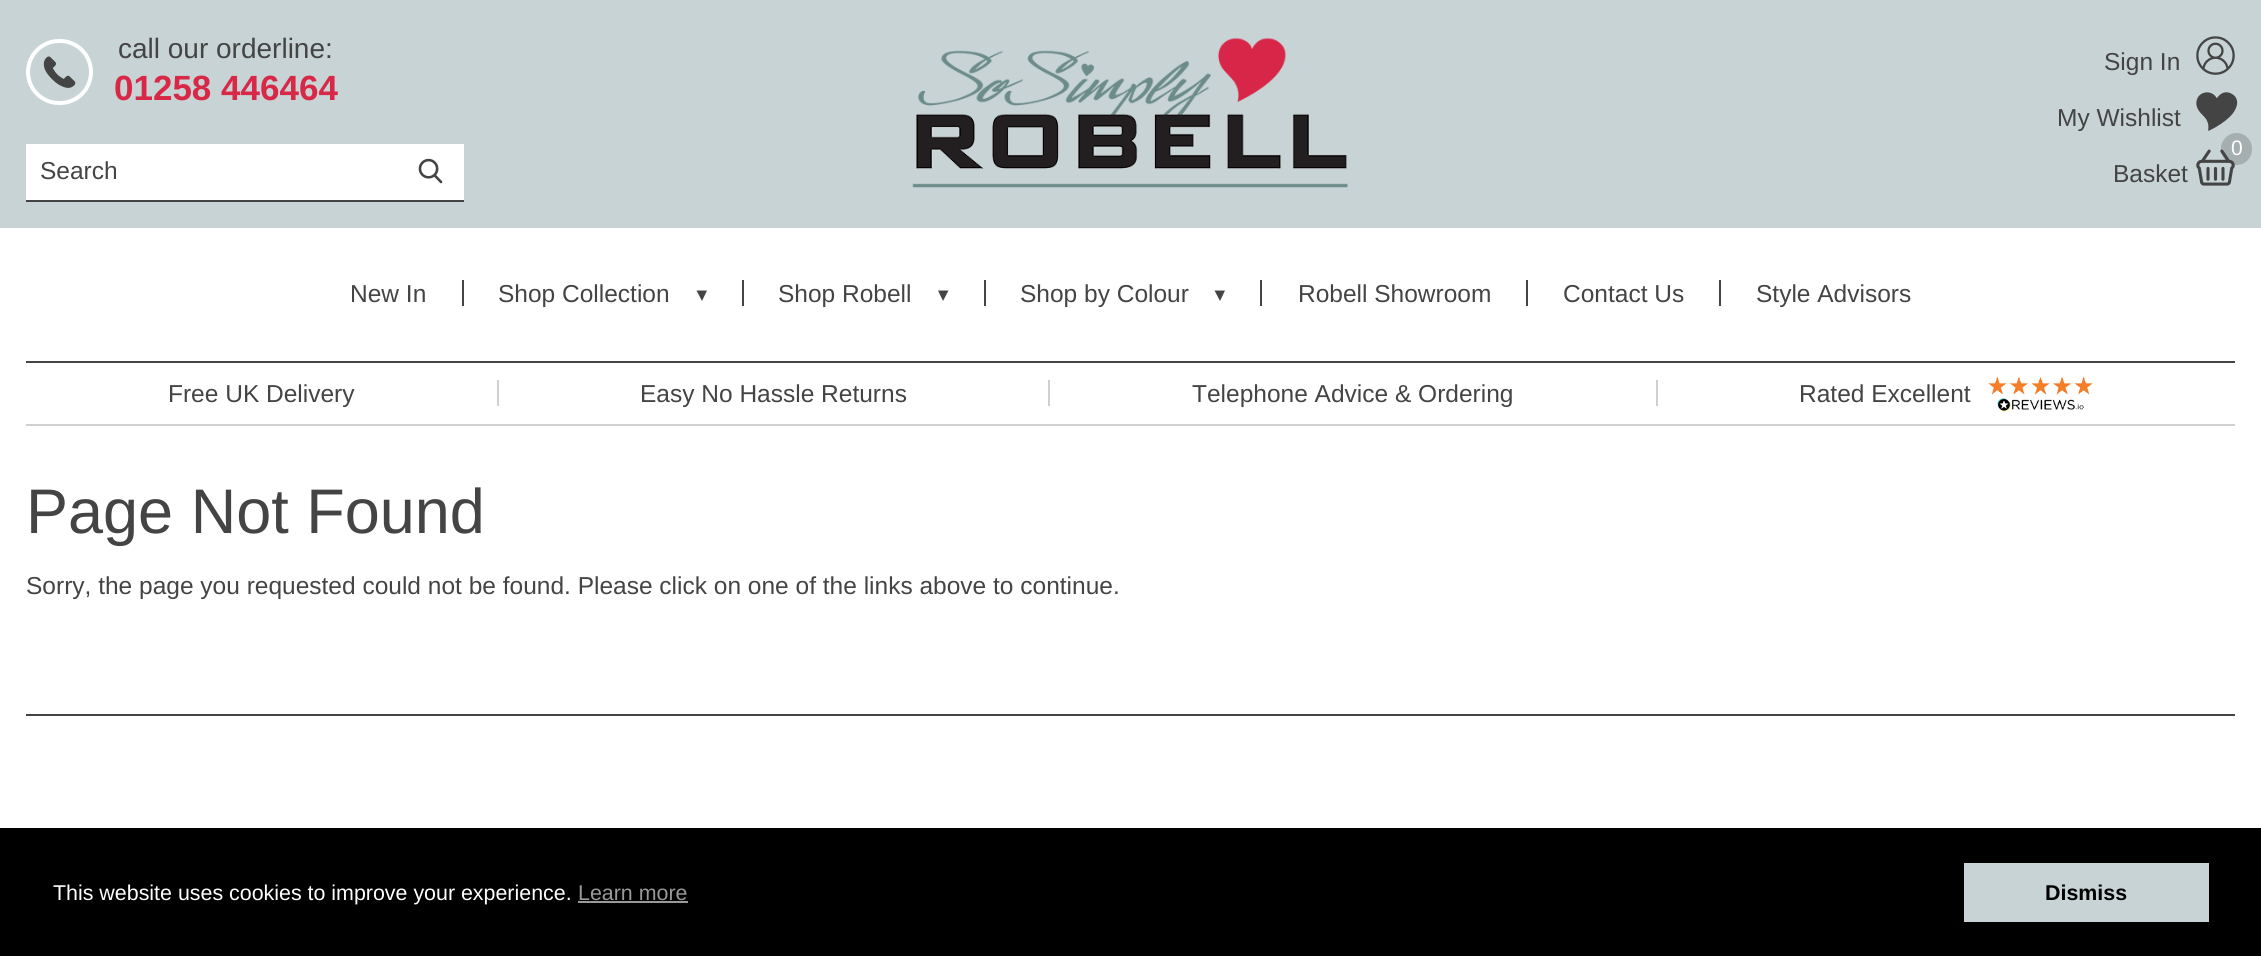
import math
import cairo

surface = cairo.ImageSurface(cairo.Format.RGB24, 2261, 956)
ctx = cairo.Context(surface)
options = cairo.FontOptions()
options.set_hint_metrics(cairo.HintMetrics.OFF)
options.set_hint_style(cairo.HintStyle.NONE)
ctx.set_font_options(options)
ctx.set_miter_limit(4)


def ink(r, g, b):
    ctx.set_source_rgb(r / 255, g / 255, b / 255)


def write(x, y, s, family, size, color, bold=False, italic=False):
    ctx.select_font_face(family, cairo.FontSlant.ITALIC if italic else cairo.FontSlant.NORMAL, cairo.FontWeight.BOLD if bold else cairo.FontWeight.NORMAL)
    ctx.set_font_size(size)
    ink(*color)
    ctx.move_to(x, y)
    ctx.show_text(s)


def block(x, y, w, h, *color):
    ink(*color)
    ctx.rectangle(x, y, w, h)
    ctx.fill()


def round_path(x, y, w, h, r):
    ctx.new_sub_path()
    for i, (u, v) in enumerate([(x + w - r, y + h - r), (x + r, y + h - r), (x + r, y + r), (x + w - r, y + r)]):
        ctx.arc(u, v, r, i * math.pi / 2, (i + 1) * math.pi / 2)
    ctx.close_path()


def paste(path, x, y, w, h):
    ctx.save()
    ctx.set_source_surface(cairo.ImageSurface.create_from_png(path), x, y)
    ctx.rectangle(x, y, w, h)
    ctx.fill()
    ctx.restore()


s1 = dict(family="Liberation Sans", size=28, color=(68, 68, 68))
s2 = dict(family="Liberation Sans", size=35, color=(217, 39, 72), bold=True)
s3 = dict(family="Liberation Sans", size=24.5, color=(68, 68, 68))
s4 = dict(family="Liberation Sans", size=21, color=(255, 255, 255))
s5 = dict(family="Liberation Sans", size=63, color=(68, 68, 68))
s6 = dict(family="Liberation Sans", size=21.4, color=(255, 255, 255))
s7 = dict(family="Liberation Sans", size=21.4, color=(153, 153, 153))
s8 = dict(family="Liberation Sans", size=21.4, color=(0, 0, 0), bold=True)

ink(255, 255, 255)
ctx.paint()
block(0, 0, 2261, 228, 199, 211, 212)
round_path(28, 41, 63, 62, 31)
ink(255, 255, 255)
ctx.set_line_width(4)
ctx.stroke()
paste("pic1.png", 43, 56, 33, 32)
write(118, 58, "call our orderline:", **s1)
write(114, 100, "01258 446464", **s2)
block(26, 144, 438, 56, 255, 255, 255)
block(26, 200, 438, 2, 68, 68, 68)
write(40, 179, "Search", **s3)
paste("pic2.png", 418, 158, 25, 26)
paste("pic3.png", 912, 38, 436, 150)
write(2104, 70, "Sign In", **s3)
paste("pic4.png", 2196, 36, 39, 39)
write(2057, 126, "My Wishlist", **s3)
paste("pic5.png", 2196, 92, 42, 39)
write(2113, 182, "Basket", **s3)
paste("pic6.png", 2196, 149, 39, 37)
ctx.set_source_rgba(0.267, 0.267, 0.267, 0.25)
round_path(2221, 133, 31, 32, 15.5)
ctx.fill()
write(2231, 155, "0", **s4)
block(26, 361, 2209, 2, 68, 68, 68)
write(350, 302, "New In", **s3)
block(462, 280, 2, 26, 68, 68, 68)
write(498, 302, "Shop Collection", **s3)
ctx.new_path()
ctx.move_to(696.5, 290.5)
ctx.line_to(707, 290.5)
ctx.line_to(702, 301)
ctx.close_path()
ctx.fill()
block(742, 280, 2, 26, 68, 68, 68)
write(778, 302, "Shop Robell", **s3)
ctx.new_path()
ctx.move_to(938, 290.5)
ctx.line_to(948.5, 290.5)
ctx.line_to(943, 301)
ctx.close_path()
ctx.fill()
block(984, 280, 2, 26, 68, 68, 68)
write(1020, 302, "Shop by Colour", **s3)
ctx.new_path()
ctx.move_to(1214.5, 290.5)
ctx.line_to(1225, 290.5)
ctx.line_to(1220, 301)
ctx.close_path()
ctx.fill()
block(1260, 280, 2, 26, 68, 68, 68)
write(1298, 302, "Robell Showroom", **s3)
block(1526, 280, 2, 26, 68, 68, 68)
write(1563, 302, "Contact Us", **s3)
block(1719, 280, 2, 26, 68, 68, 68)
write(1756, 302, "Style Advisors", **s3)
write(168, 402, "Free UK Delivery", **s3)
block(497, 380, 2, 26, 208, 208, 208)
write(640, 402, "Easy No Hassle Returns", **s3)
block(1048, 380, 2, 26, 208, 208, 208)
write(1192, 402, "Telephone Advice & Ordering", **s3)
block(1656, 380, 2, 26, 208, 208, 208)
write(1799, 402, "Rated Excellent", **s3)
paste("pic7.png", 1988, 376, 105, 36)
block(26, 424, 2209, 2, 208, 208, 208)
write(26, 533, "Page Not Found", **s5)
write(26, 594, "Sorry, the page you requested could not be found. Please click on one of the links above to continue.", **s3)
block(26, 714, 2209, 2, 68, 68, 68)
block(0, 828, 2261, 128, 0, 0, 0)
write(53, 900, "This website uses cookies to improve your experience.", **s6)
write(578, 900, "Learn more", **s7)
block(578, 901, 110, 2, 153, 153, 153)
block(1964, 863, 245, 59, 199, 211, 212)
write(2045, 900, "Dismiss", **s8)
surface.write_to_png("screenshot.png")
